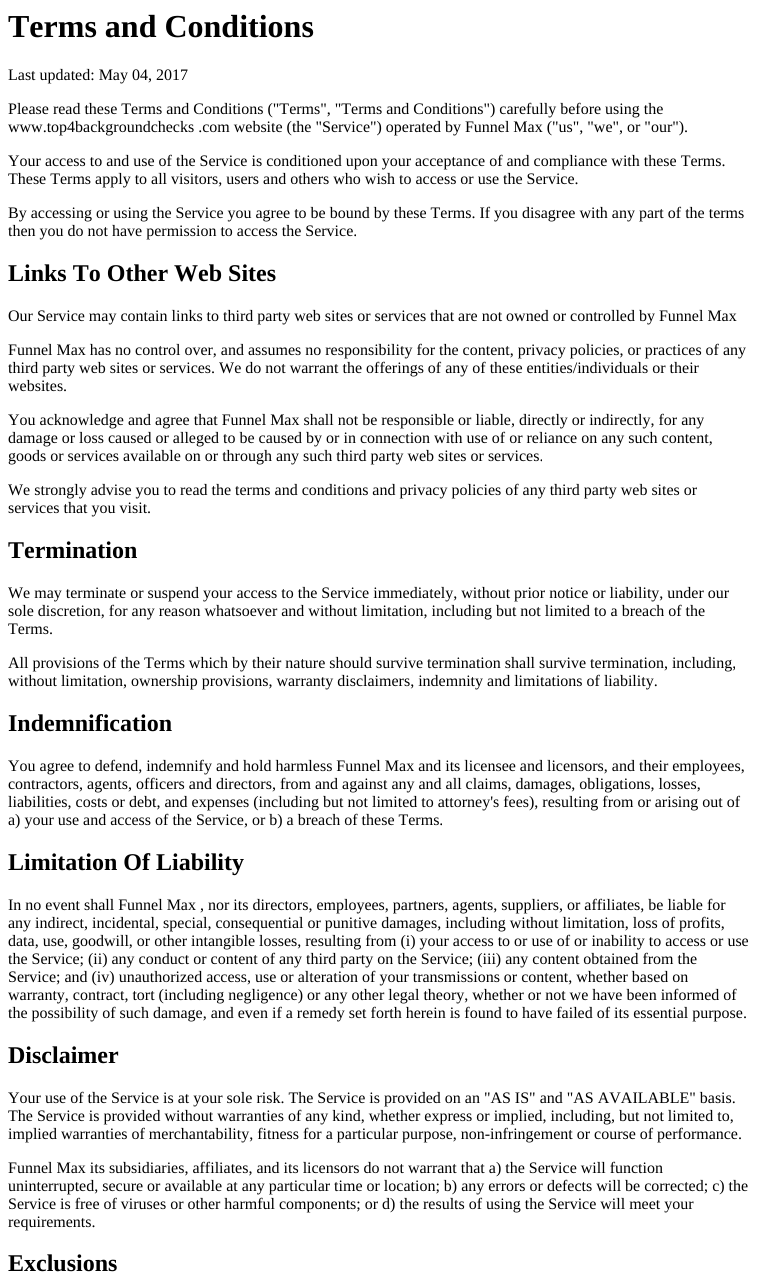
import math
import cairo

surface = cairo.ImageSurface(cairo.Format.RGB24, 758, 1277)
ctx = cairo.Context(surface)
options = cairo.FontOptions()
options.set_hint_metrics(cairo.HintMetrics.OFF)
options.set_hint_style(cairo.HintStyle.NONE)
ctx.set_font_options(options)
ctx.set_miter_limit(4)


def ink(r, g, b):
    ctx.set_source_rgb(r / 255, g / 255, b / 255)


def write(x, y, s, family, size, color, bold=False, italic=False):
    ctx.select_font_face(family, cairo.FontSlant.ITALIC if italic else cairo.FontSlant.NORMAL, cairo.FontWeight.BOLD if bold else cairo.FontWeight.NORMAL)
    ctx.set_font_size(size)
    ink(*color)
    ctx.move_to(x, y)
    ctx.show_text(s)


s1 = dict(family="Liberation Serif", size=32, color=(0, 0, 0), bold=True)
s2 = dict(family="Liberation Serif", size=16, color=(0, 0, 0))
s3 = dict(family="Liberation Serif", size=24, color=(0, 0, 0), bold=True)

ink(255, 255, 255)
ctx.paint()
write(8, 37, "Terms and Conditions", **s1)
write(8, 80, "Last updated: May 04, 2017", **s2)
write(8, 114, "Please read these Terms and Conditions (\"Terms\", \"Terms and Conditions\") carefully before using the", **s2)
write(8, 132, "www.top4backgroundchecks .com website (the \"Service\") operated by Funnel Max (\"us\", \"we\", or \"our\").", **s2)
write(8, 166, "Your access to and use of the Service is conditioned upon your acceptance of and compliance with these Terms.", **s2)
write(8, 184, "These Terms apply to all visitors, users and others who wish to access or use the Service.", **s2)
write(8, 218, "By accessing or using the Service you agree to be bound by these Terms. If you disagree with any part of the terms", **s2)
write(8, 236, "then you do not have permission to access the Service.", **s2)
write(8, 281, "Links To Other Web Sites", **s3)
write(8, 321, "Our Service may contain links to third party web sites or services that are not owned or controlled by Funnel Max", **s2)
write(8, 355, "Funnel Max has no control over, and assumes no responsibility for the content, privacy policies, or practices of any", **s2)
write(8, 373, "third party web sites or services. We do not warrant the offerings of any of these entities/individuals or their", **s2)
write(8, 391, "websites.", **s2)
write(8, 425, "You acknowledge and agree that Funnel Max shall not be responsible or liable, directly or indirectly, for any", **s2)
write(8, 443, "damage or loss caused or alleged to be caused by or in connection with use of or reliance on any such content,", **s2)
write(8, 461, "goods or services available on or through any such third party web sites or services.", **s2)
write(8, 495, "We strongly advise you to read the terms and conditions and privacy policies of any third party web sites or", **s2)
write(8, 513, "services that you visit.", **s2)
write(8, 558, "Termination", **s3)
write(8, 598, "We may terminate or suspend your access to the Service immediately, without prior notice or liability, under our", **s2)
write(8, 616, "sole discretion, for any reason whatsoever and without limitation, including but not limited to a breach of the", **s2)
write(8, 634, "Terms.", **s2)
write(8, 668, "All provisions of the Terms which by their nature should survive termination shall survive termination, including,", **s2)
write(8, 686, "without limitation, ownership provisions, warranty disclaimers, indemnity and limitations of liability.", **s2)
write(8, 731, "Indemnification", **s3)
write(8, 771, "You agree to defend, indemnify and hold harmless Funnel Max and its licensee and licensors, and their employees,", **s2)
write(8, 789, "contractors, agents, officers and directors, from and against any and all claims, damages, obligations, losses,", **s2)
write(8, 807, "liabilities, costs or debt, and expenses (including but not limited to attorney's fees), resulting from or arising out of", **s2)
write(8, 825, "a) your use and access of the Service, or b) a breach of these Terms.", **s2)
write(8, 870, "Limitation Of Liability", **s3)
write(8, 910, "In no event shall Funnel Max , nor its directors, employees, partners, agents, suppliers, or affiliates, be liable for", **s2)
write(8, 928, "any indirect, incidental, special, consequential or punitive damages, including without limitation, loss of profits,", **s2)
write(8, 946, "data, use, goodwill, or other intangible losses, resulting from (i) your access to or use of or inability to access or use", **s2)
write(8, 964, "the Service; (ii) any conduct or content of any third party on the Service; (iii) any content obtained from the", **s2)
write(8, 982, "Service; and (iv) unauthorized access, use or alteration of your transmissions or content, whether based on", **s2)
write(8, 1000, "warranty, contract, tort (including negligence) or any other legal theory, whether or not we have been informed of", **s2)
write(8, 1018, "the possibility of such damage, and even if a remedy set forth herein is found to have failed of its essential purpose.", **s2)
write(8, 1063, "Disclaimer", **s3)
write(8, 1103, "Your use of the Service is at your sole risk. The Service is provided on an \"AS IS\" and \"AS AVAILABLE\" basis.", **s2)
write(8, 1121, "The Service is provided without warranties of any kind, whether express or implied, including, but not limited to,", **s2)
write(8, 1139, "implied warranties of merchantability, fitness for a particular purpose, non-infringement or course of performance.", **s2)
write(8, 1173, "Funnel Max its subsidiaries, affiliates, and its licensors do not warrant that a) the Service will function", **s2)
write(8, 1191, "uninterrupted, secure or available at any particular time or location; b) any errors or defects will be corrected; c) the", **s2)
write(8, 1209, "Service is free of viruses or other harmful components; or d) the results of using the Service will meet your", **s2)
write(8, 1227, "requirements.", **s2)
write(8, 1271, "Exclusions", **s3)
surface.write_to_png("screenshot.png")
